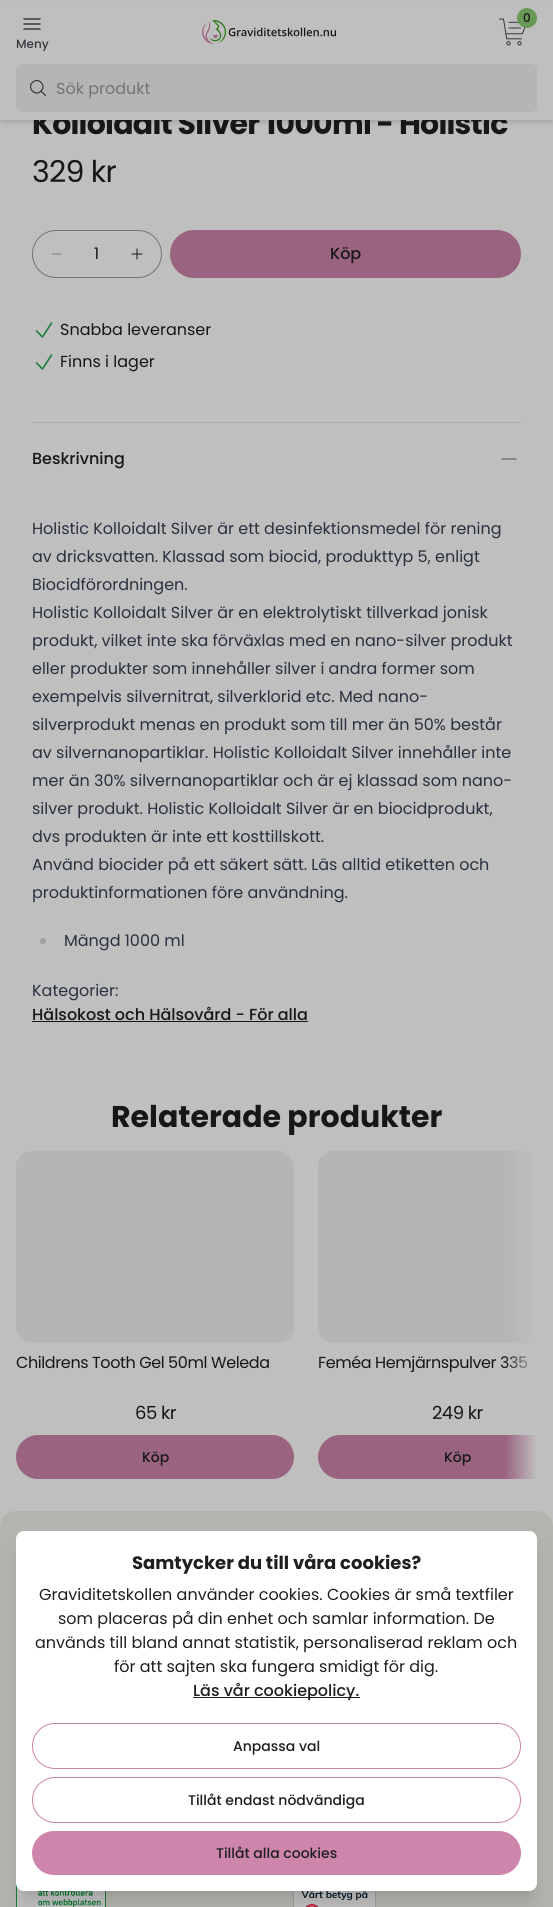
import math
import cairo

surface = cairo.ImageSurface(cairo.Format.RGB24, 553, 1907)
ctx = cairo.Context(surface)
options = cairo.FontOptions()
options.set_hint_metrics(cairo.HintMetrics.OFF)
options.set_hint_style(cairo.HintStyle.NONE)
ctx.set_font_options(options)
ctx.set_miter_limit(4)


def ink(r, g, b):
    ctx.set_source_rgb(r / 255, g / 255, b / 255)


def write(x, y, s, family, size, color, bold=False, italic=False):
    ctx.select_font_face(family, cairo.FontSlant.ITALIC if italic else cairo.FontSlant.NORMAL, cairo.FontWeight.BOLD if bold else cairo.FontWeight.NORMAL)
    ctx.set_font_size(size)
    ink(*color)
    ctx.move_to(x, y)
    ctx.show_text(s)


def write_spaced(x, y, s, letter, word):
    ctx.move_to(x, y)
    for ch in s:
        ctx.show_text(ch)
        ctx.rel_move_to(letter + word * (ch == ' '), 0)


def block(x, y, w, h, *color):
    ink(*color)
    ctx.rectangle(x, y, w, h)
    ctx.fill()


def round_path(x, y, w, h, r):
    ctx.new_sub_path()
    for i, (u, v) in enumerate([(x + w - r, y + h - r), (x + r, y + h - r), (x + r, y + r), (x + w - r, y + r)]):
        ctx.arc(u, v, r, i * math.pi / 2, (i + 1) * math.pi / 2)
    ctx.close_path()


def blur_box(x, y, w, h, r, blur, alpha):
    ctx.push_group_with_content(cairo.Content.ALPHA)
    ctx.set_operator(cairo.Operator.SOURCE)
    for i in range(15, -16, -2):
        e = blur * i / 6
        if min(w, h) + 2 * e > 0:
            ctx.set_source_rgba(0, 0, 0, alpha * math.erfc((i - 1) / 8.5) / 2)
            round_path(x - e, y - e, w + 2 * e, h + 2 * e, max(0, min(r + e + blur * .6, min(w, h) / 2 + e)))
            ctx.fill()
    ctx.mask(ctx.pop_group())


def paste(path, x, y, w, h):
    ctx.save()
    ctx.set_source_surface(cairo.ImageSurface.create_from_png(path), x, y)
    ctx.rectangle(x, y, w, h)
    ctx.fill()
    ctx.restore()


s1 = dict(family="Poppins Medium", size=12, color=(23, 23, 23))
s2 = dict(family="Poppins Medium", size=12, color=(55, 56, 62))
s3 = dict(family="Poppins", size=16, color=(115, 115, 115))
s4 = dict(family="Poppins", size=16, color=(23, 23, 23))
s5 = dict(family="Poppins Medium", size=16, color=(23, 23, 23))
s6 = dict(family="Poppins", size=16, color=(41, 49, 61))
s7 = dict(family="Poppins", size=30, color=(23, 23, 23), bold=True)
s8 = dict(family="Poppins Medium", size=14, color=(23, 23, 23))
s9 = dict(family="Poppins", size=18, color=(31, 31, 31), bold=True)
s10 = dict(family="Poppins", size=16, color=(31, 31, 31))
s11 = dict(family="Poppins Medium", size=16, color=(31, 31, 31))
s12 = dict(family="Poppins Medium", size=14, color=(31, 31, 31))

ink(191, 191, 191)
ctx.paint()
ink(0, 0, 0)
blur_box(2, 4, 549, 116, 0, 2, 0.1)
blur_box(1, 5, 551, 118, 0, 3, 0.1)
ctx.select_font_face("Poppins", cairo.FontSlant.NORMAL, cairo.FontWeight.BOLD)
ctx.set_font_size(30)
ink(23, 23, 23)
write_spaced(32, 134, "Kolloidalt Silver 1000ml - Holistic", -0.75, 0)
block(0, 1, 553, 119, 191, 191, 191)
paste("pic1.png", 499, 18, 27, 28)
ink(104, 153, 86)
ctx.arc(527, 18, 10, 0, 2 * math.pi)
ctx.fill()
write(523, 22, "0", **s1)
paste("pic2.png", 202, 20, 134, 24)
ctx.new_path()
ctx.move_to(24, 19)
ctx.line_to(40, 19)
ctx.move_to(24, 24)
ctx.line_to(40, 24)
ctx.move_to(24, 29)
ctx.line_to(40, 29)
ink(55, 56, 62)
ctx.set_line_width(1.5)
ctx.set_line_cap(cairo.LineCap.ROUND)
ctx.set_line_join(cairo.LineJoin.ROUND)
ctx.stroke()
write(16, 48, "Meny", **s2)
ink(181, 181, 181)
round_path(16, 64, 521, 48, 6)
ctx.fill()
ctx.new_path()
ctx.move_to(45.5, 95.5)
ctx.line_to(41, 91)
ctx.move_to(41, 91)
ctx.curve_to(47, 85.5, 38, 76.5, 32.5, 82.5)
ctx.curve_to(26.5, 88, 35.5, 97, 41, 91)
ctx.close_path()
ink(55, 56, 62)
ctx.set_line_width(1.2)
ctx.stroke()
write(56, 94, "Sök produkt", **s3)
ctx.set_font_size(30)
ink(23, 23, 23)
write_spaced(32, 182, "329 kr", -0.75, 0)
round_path(32.5, 230.5, 129, 47, 23.5)
ink(115, 115, 115)
ctx.set_line_width(1)
ctx.set_line_cap(cairo.LineCap.BUTT)
ctx.set_line_join(cairo.LineJoin.MITER)
ctx.stroke()
ctx.new_path()
ctx.move_to(52.5, 254)
ctx.line_to(61.5, 254)
ink(124, 124, 124)
ctx.set_line_cap(cairo.LineCap.ROUND)
ctx.set_line_join(cairo.LineJoin.ROUND)
ctx.stroke()
write(94, 259, "1", **s4)
ctx.new_path()
ctx.move_to(137, 249)
ctx.line_to(137, 259)
ctx.move_to(142, 254)
ctx.line_to(132, 254)
ctx.stroke()
ink(154, 100, 129)
round_path(170, 230, 351, 48, 24)
ctx.fill()
write(330, 259, "Köp", **s5)
ctx.new_path()
ctx.move_to(36.5, 331)
ctx.line_to(42.5, 337)
ctx.line_to(51.5, 323)
ctx.move_to(36.5, 363)
ctx.line_to(42.5, 369)
ctx.line_to(51.5, 355)
ink(17, 122, 56)
ctx.set_line_width(1.5)
ctx.stroke()
write(60, 335, "Snabba leveranser", **s4)
write(60, 367, "Finns i lager", **s4)
block(32, 422, 489, 1, 172, 173, 176)
write(32, 464, "Beskrivning", **s5)
ctx.new_path()
ctx.move_to(502, 459)
ctx.line_to(516, 459)
ink(115, 115, 115)
ctx.stroke()
write(32, 534, "Holistic Kolloidalt Silver är ett desinfektionsmedel för rening", **s6)
write(32, 562, "av dricksvatten. Klassad som biocid, produkttyp 5, enligt", **s6)
write(32, 590, "Biocidförordningen.", **s6)
write(32, 618, "Holistic Kolloidalt Silver är en elektrolytiskt tillverkad jonisk", **s6)
write(32, 646, "produkt, vilket inte ska förväxlas med en nano-silver produkt", **s6)
write(32, 674, "eller produkter som innehåller silver i andra former som", **s6)
write(32, 702, "exempelvis silvernitrat, silverklorid etc. Med nano-", **s6)
write(32, 730, "silverprodukt menas en produkt som till mer än 50% består", **s6)
write(32, 758, "av silvernanopartiklar. Holistic Kolloidalt Silver innehåller inte", **s6)
write(32, 786, "mer än 30% silvernanopartiklar och är ej klassad som nano-", **s6)
write(32, 814, "silver produkt. Holistic Kolloidalt Silver är en biocidprodukt,", **s6)
write(32, 842, "dvs produkten är inte ett kosttillskott.", **s6)
write(32, 870, "Använd biocider på ett säkert sätt. Läs alltid etiketten och", **s6)
write(32, 898, "produktinformationen före användning.", **s6)
ink(157, 160, 164)
ctx.new_path()
ctx.arc(43, 941, 3, 0, 2 * math.pi)
ctx.fill()
write(64, 946, "Mängd 1000 ml", **s6)
write(32, 996, "Kategorier:", **s6)
write(32, 1020, "Hälsokost och Hälsovård - För alla", **s5)
block(32, 1021, 276, 1, 23, 23, 23)
write(111, 1127, "Relaterade produkter", **s7)
ink(181, 181, 181)
ctx.new_path()
ctx.move_to(334, 1151)
ctx.line_to(537, 1151)
ctx.line_to(537, 1343)
ctx.line_to(334, 1343)
ctx.curve_to(325, 1343, 318, 1336, 318, 1327)
ctx.line_to(318, 1167)
ctx.curve_to(318, 1158, 325, 1151, 334, 1151)
ctx.close_path()
ctx.fill()
ctx.select_font_face("Poppins")
ctx.set_font_size(16)
ink(23, 23, 23)
write_spaced(318, 1368, "Feméa Hemjärnspulver 335", -0.4, 0)
ink(154, 100, 129)
ctx.new_path()
ctx.move_to(340, 1435)
ctx.line_to(537, 1435)
ctx.line_to(537, 1479)
ctx.line_to(340, 1479)
ctx.curve_to(328, 1479, 318, 1469, 318, 1457)
ctx.curve_to(318, 1445, 328, 1435, 340, 1435)
ctx.close_path()
ctx.fill()
gradient = cairo.LinearGradient(537, 1315, 505, 1315)
gradient.add_color_stop_rgba(0, 0.749, 0.749, 0.749, 1)
gradient.add_color_stop_rgba(1, 0.749, 0.749, 0.749, 0)
ctx.set_source(gradient)
ctx.rectangle(506, 1151, 31, 328)
ctx.fill()
ink(181, 181, 181)
round_path(16, 1151, 278, 192, 16)
ctx.fill()
ink(23, 23, 23)
write_spaced(16, 1368, "Childrens Tooth Gel 50ml Weleda", -0.4, 0)
ctx.set_font_size(18)
write_spaced(135, 1419, "65 kr", -0.5, 0)
ink(154, 100, 129)
round_path(16, 1435, 278, 44, 22)
ctx.fill()
write(142, 1462, "Köp", **s8)
ctx.select_font_face("Poppins")
ctx.set_font_size(18)
write_spaced(432, 1419, "249 kr", -0.5, 0)
write(444, 1462, "Köp", **s8)
ink(181, 179, 174)
ctx.new_path()
ctx.move_to(16, 1511)
ctx.line_to(537, 1511)
ctx.curve_to(546, 1511, 553, 1518, 553, 1527)
ctx.line_to(553, 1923)
ctx.line_to(0, 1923)
ctx.line_to(0, 1527)
ctx.curve_to(0, 1518, 7, 1511, 16, 1511)
ctx.close_path()
ctx.fill()
paste("pic3.png", 16, 1883, 90, 24)
paste("pic4.png", 293, 1891, 83, 16)
ink(0, 0, 0)
blur_box(22, 1545, 509, 348, 2, 5, 0.1)
blur_box(21, 1556, 511, 350, 3, 12.5, 0.1)
ink(255, 255, 255)
round_path(16, 1531, 521, 360, 8)
ctx.fill()
write(132, 1569, "Samtycker du till våra cookies?", **s9)
write(39, 1600, "Graviditetskollen använder cookies. Cookies är små textfiler", **s10)
write(58, 1624, "som placeras på din enhet och samlar information. De", **s10)
write(35, 1648, "används till bland annat statistik, personaliserad reklam och", **s10)
write(114, 1672, "för att sajten ska fungera smidigt för dig.", **s10)
block(193, 1697, 167, 1, 31, 31, 31)
write(193, 1696, "Läs vår cookiepolicy.", **s11)
round_path(32.5, 1723.5, 488, 45, 22.5)
ink(205, 133, 172)
ctx.set_line_width(1)
ctx.set_line_cap(cairo.LineCap.BUTT)
ctx.set_line_join(cairo.LineJoin.MITER)
ctx.stroke()
write(233, 1751, "Anpassa val", **s12)
round_path(32.5, 1777.5, 488, 45, 22.5)
ink(205, 133, 172)
ctx.stroke()
write(188, 1805, "Tillåt endast nödvändiga", **s12)
ink(205, 133, 172)
round_path(32, 1831, 489, 44, 22)
ctx.fill()
write(216, 1858, "Tillåt alla cookies", **s12)
surface.write_to_png("screenshot.png")
